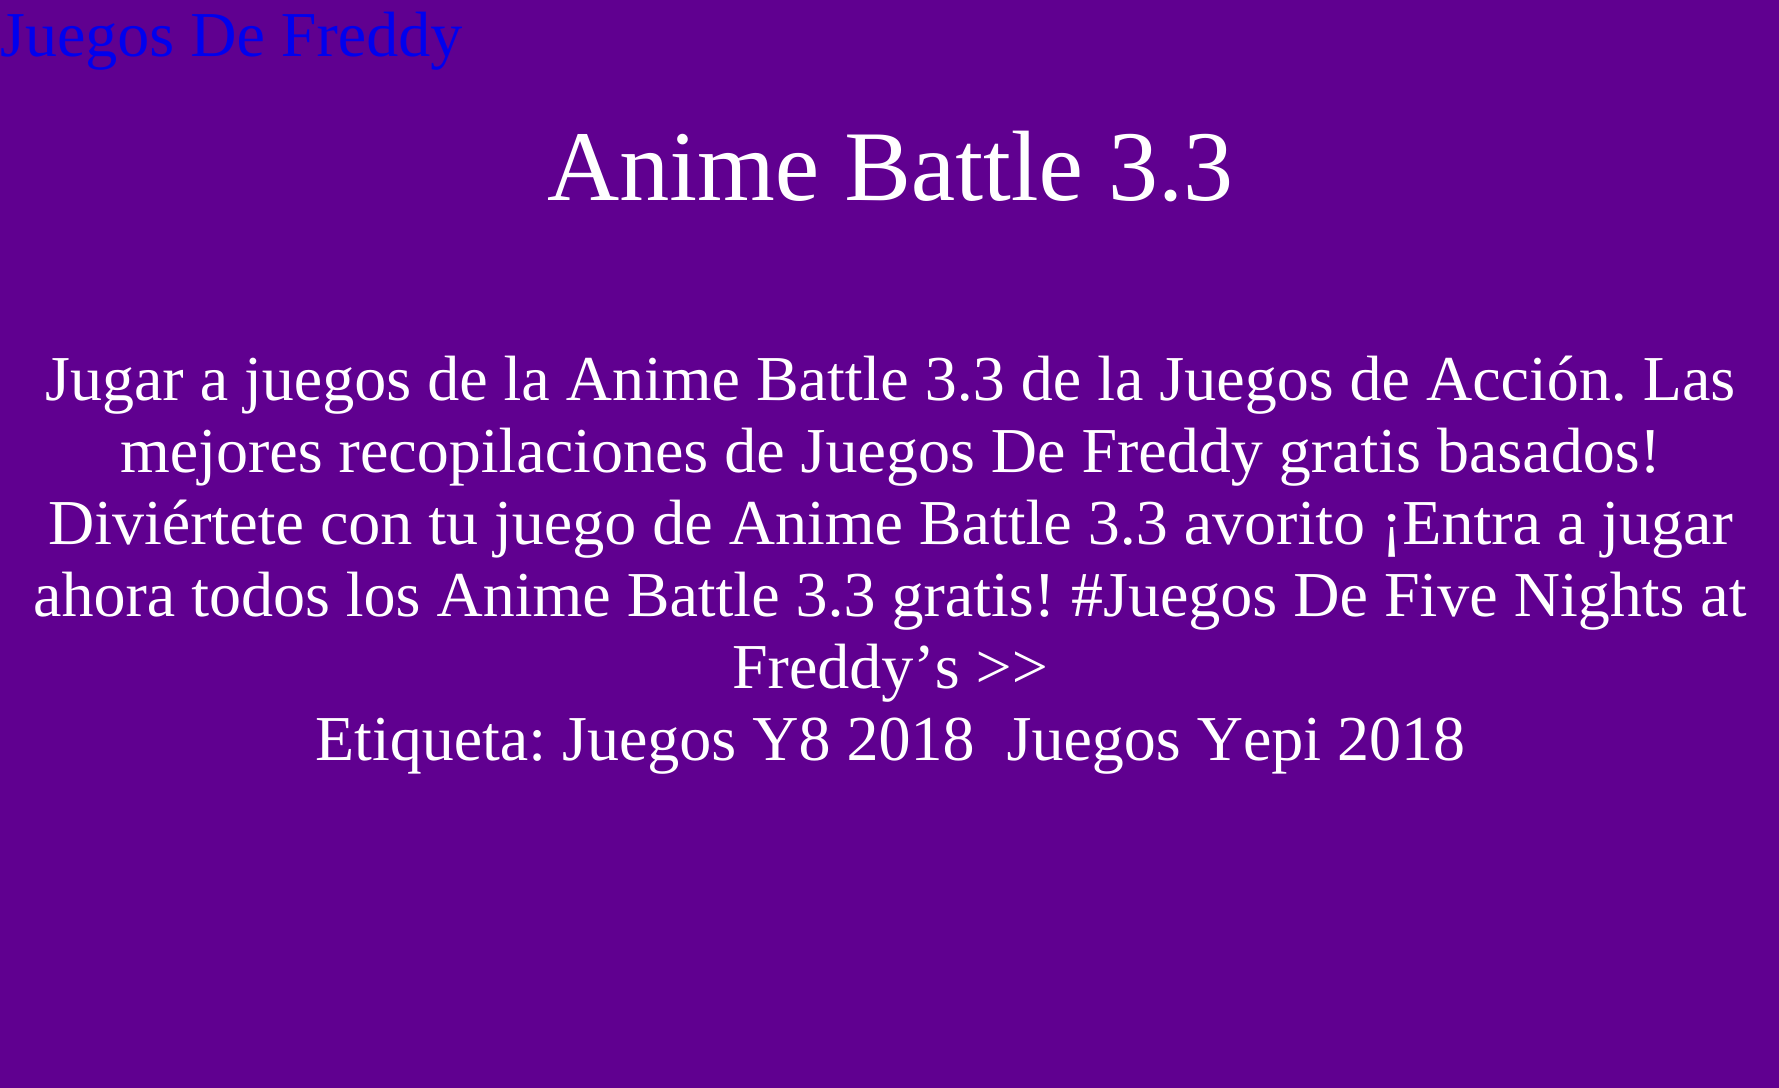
import math
import cairo

surface = cairo.ImageSurface(cairo.Format.RGB24, 1779, 1088)
ctx = cairo.Context(surface)
options = cairo.FontOptions()
options.set_hint_metrics(cairo.HintMetrics.OFF)
options.set_hint_style(cairo.HintStyle.NONE)
ctx.set_font_options(options)
ctx.set_miter_limit(4)


def ink(r, g, b):
    ctx.set_source_rgb(r / 255, g / 255, b / 255)


def write(x, y, s, family, size, color, bold=False, italic=False):
    ctx.select_font_face(family, cairo.FontSlant.ITALIC if italic else cairo.FontSlant.NORMAL, cairo.FontWeight.BOLD if bold else cairo.FontWeight.NORMAL)
    ctx.set_font_size(size)
    ink(*color)
    ctx.move_to(x, y)
    ctx.show_text(s)


s1 = dict(family="Liberation Serif", size=64, color=(0, 0, 238))
s2 = dict(family="Liberation Serif", size=100, color=(255, 255, 255))
s3 = dict(family="Liberation Serif", size=64, color=(255, 255, 255))

ink(96, 0, 144)
ctx.paint()
write(0, 56, "Juegos De Freddy", **s1)
write(547, 200, "Anime Battle 3.3", **s2)
write(45, 400, "Jugar a juegos de la Anime Battle 3.3 de la Juegos de Acción. Las", **s3)
write(120, 472, "mejores recopilaciones de Juegos De Freddy gratis basados!", **s3)
write(48, 544, "Diviértete con tu juego de Anime Battle 3.3 avorito ¡Entra a jugar", **s3)
write(33, 616, "ahora todos los Anime Battle 3.3 gratis! #Juegos De Five Nights at", **s3)
write(732, 688, "Freddy’s >>", **s3)
write(315, 760, "Etiqueta: Juegos Y8 2018  Juegos Yepi 2018", **s3)
surface.write_to_png("screenshot.png")
